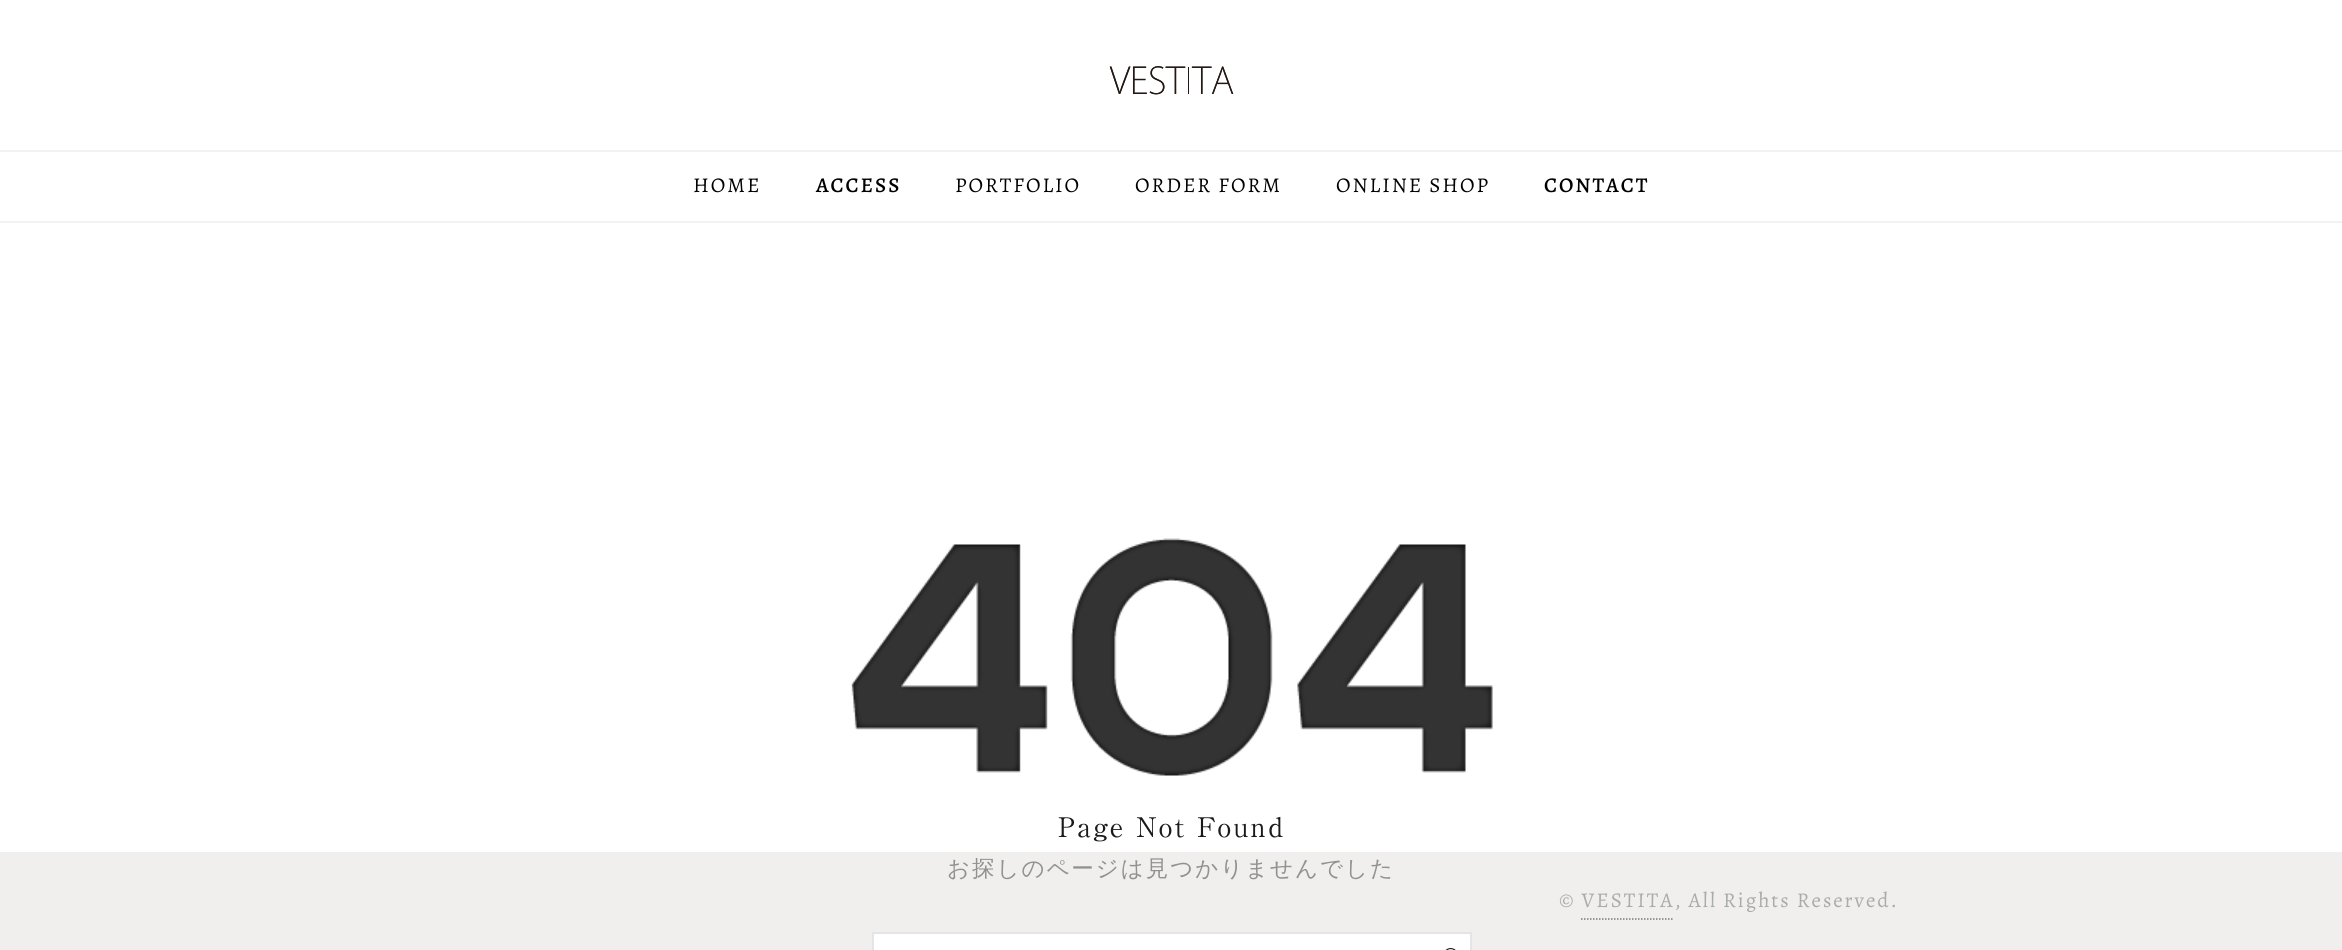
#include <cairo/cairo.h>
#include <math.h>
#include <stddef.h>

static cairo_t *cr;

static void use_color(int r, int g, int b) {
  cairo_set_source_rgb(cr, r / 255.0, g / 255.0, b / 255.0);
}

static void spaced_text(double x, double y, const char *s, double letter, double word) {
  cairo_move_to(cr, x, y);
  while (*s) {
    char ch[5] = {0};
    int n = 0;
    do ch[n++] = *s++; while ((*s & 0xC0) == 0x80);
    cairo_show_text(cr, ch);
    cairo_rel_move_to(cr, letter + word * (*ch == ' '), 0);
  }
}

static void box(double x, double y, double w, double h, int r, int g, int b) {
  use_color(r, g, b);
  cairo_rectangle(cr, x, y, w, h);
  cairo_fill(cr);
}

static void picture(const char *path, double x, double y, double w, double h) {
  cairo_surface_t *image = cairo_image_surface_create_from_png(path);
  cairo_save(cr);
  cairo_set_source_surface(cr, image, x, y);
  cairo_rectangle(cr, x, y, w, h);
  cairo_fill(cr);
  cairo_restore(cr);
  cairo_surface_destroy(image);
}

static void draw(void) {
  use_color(255, 255, 255);
  cairo_paint(cr);
  box(0, 150, 2342, 2, 241, 242, 242);
  picture("img_01.png", 1109, 66, 125, 29);
  box(0, 221, 2342, 2, 242, 242, 242);
  picture("img_02.png", 851, 538, 642, 238);
  box(0, 852, 2342, 98, 240, 239, 237);
  use_color(255, 255, 255);
  cairo_rectangle(cr, 873, 933, 598, 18);
  cairo_fill_preserve(cr);
  use_color(229, 229, 229);
  cairo_stroke(cr);
  picture("img_03.png", 1445, 948, 11, 2);
  cairo_new_path(cr);
  cairo_move_to(cr, 1581, 919);
  cairo_line_to(cr, 1674, 919);
  use_color(123, 121, 117);
  cairo_set_line_width(cr, 1.5);
  cairo_set_dash(cr, (double[]){1.5, 1.5}, 2, 0);
  cairo_stroke(cr);
  cairo_select_font_face(cr, "Alegreya", CAIRO_FONT_SLANT_NORMAL, CAIRO_FONT_WEIGHT_NORMAL);
  cairo_set_font_size(cr, 21);
  use_color(0, 0, 0);
  spaced_text(693, 192, "HOME", 1.95, 0);
  cairo_select_font_face(cr, "Alegreya Medium", CAIRO_FONT_SLANT_NORMAL, CAIRO_FONT_WEIGHT_NORMAL);
  spaced_text(816, 192, "ACCESS", 1.95, 0);
  cairo_select_font_face(cr, "Alegreya", CAIRO_FONT_SLANT_NORMAL, CAIRO_FONT_WEIGHT_NORMAL);
  spaced_text(955, 192, "PORTFOLIO", 1.95, 0);
  spaced_text(1135, 192, "ORDER FORM", 1.95, 0);
  spaced_text(1336, 192, "ONLINE SHOP", 1.95, 0);
  cairo_select_font_face(cr, "Alegreya Medium", CAIRO_FONT_SLANT_NORMAL, CAIRO_FONT_WEIGHT_NORMAL);
  spaced_text(1544, 192, "CONTACT", 1.95, 0);
  cairo_select_font_face(cr, "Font", CAIRO_FONT_SLANT_NORMAL, CAIRO_FONT_WEIGHT_NORMAL);
  cairo_set_font_size(cr, 27);
  use_color(26, 26, 26);
  spaced_text(1058, 837, "Page Not Found", 1.95, 0);
  cairo_select_font_face(cr, "WenQuanYi Zen Hei Medium", CAIRO_FONT_SLANT_NORMAL, CAIRO_FONT_WEIGHT_NORMAL);
  cairo_set_font_size(cr, 22.5);
  use_color(145, 145, 145);
  spaced_text(947, 876, "お探しのページは見つかりませんでした", 1.95, 0);
  cairo_select_font_face(cr, "Alegreya", CAIRO_FONT_SLANT_NORMAL, CAIRO_FONT_WEIGHT_NORMAL);
  cairo_set_font_size(cr, 21);
  use_color(169, 172, 167);
  spaced_text(1559, 907, "© VESTITA, All Rights Reserved.", 1.95, 0);
}

int main(void) {
  cairo_surface_t *surface = cairo_image_surface_create(CAIRO_FORMAT_RGB24, 2342, 950);
  cr = cairo_create(surface);
  cairo_font_options_t *options = cairo_font_options_create();
  cairo_font_options_set_hint_metrics(options, CAIRO_HINT_METRICS_OFF);
  cairo_font_options_set_hint_style(options, CAIRO_HINT_STYLE_NONE);
  cairo_set_font_options(cr, options);
  cairo_set_miter_limit(cr, 4);
  draw();
  cairo_surface_write_to_png(surface, "out.png");
  cairo_font_options_destroy(options);
  cairo_destroy(cr);
  cairo_surface_destroy(surface);
  return 0;
}
